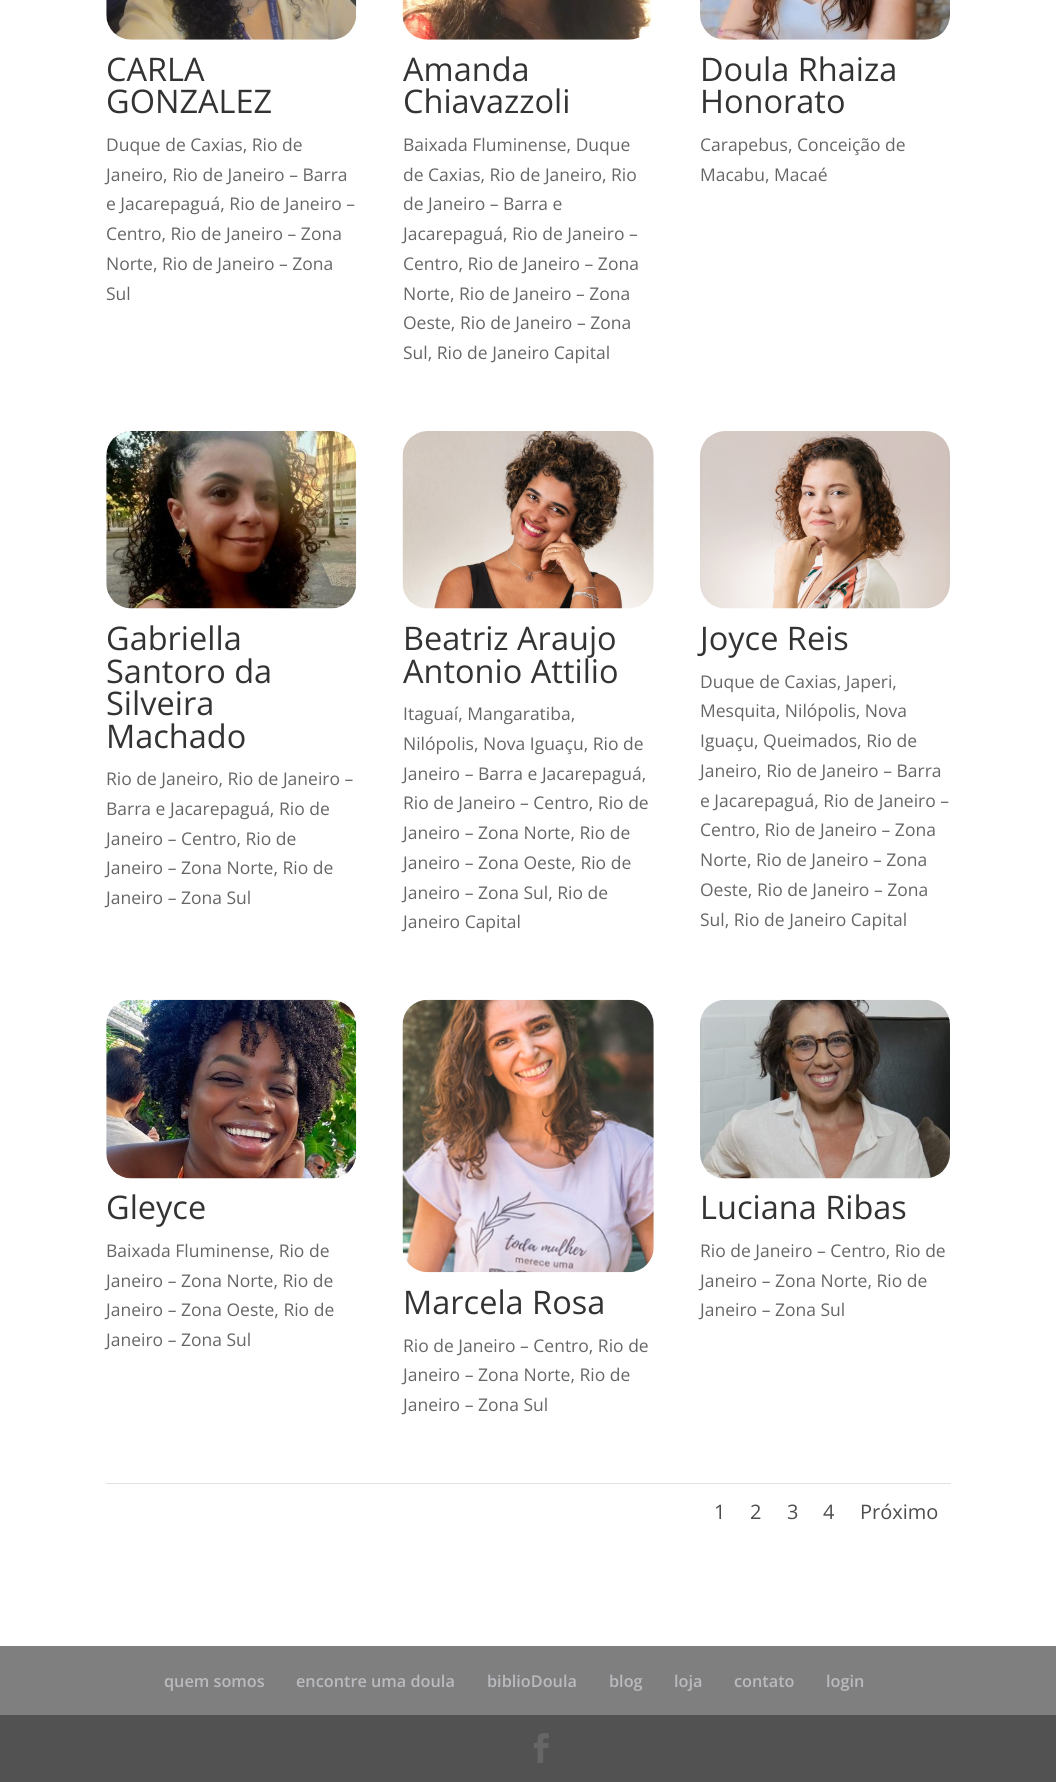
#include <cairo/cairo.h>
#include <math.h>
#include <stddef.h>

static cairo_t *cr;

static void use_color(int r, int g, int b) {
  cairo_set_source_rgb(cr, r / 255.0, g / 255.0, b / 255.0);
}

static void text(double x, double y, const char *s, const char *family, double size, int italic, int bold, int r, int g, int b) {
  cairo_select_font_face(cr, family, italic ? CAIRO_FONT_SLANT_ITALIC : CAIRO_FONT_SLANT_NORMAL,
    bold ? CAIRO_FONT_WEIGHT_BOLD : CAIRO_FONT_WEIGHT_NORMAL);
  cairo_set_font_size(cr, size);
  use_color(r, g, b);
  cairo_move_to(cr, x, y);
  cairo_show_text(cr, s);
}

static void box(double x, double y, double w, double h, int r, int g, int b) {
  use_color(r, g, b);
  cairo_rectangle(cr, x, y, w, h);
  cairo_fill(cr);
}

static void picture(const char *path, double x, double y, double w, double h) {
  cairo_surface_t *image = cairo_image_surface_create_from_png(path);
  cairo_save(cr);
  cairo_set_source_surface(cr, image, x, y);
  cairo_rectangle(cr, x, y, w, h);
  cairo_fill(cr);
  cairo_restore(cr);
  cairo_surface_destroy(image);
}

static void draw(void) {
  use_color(127, 127, 127);
  cairo_paint(cr);
  box(0, 0, 1056, 1646, 255, 255, 255);
  picture("img_01.png", 106, 0, 251, 40);
  picture("img_02.png", 402, 0, 250, 40);
  picture("img_03.png", 700, 0, 250, 40);
  picture("img_04.png", 106, 431, 251, 178);
  picture("img_05.png", 402, 431, 252, 178);
  picture("img_06.png", 700, 431, 250, 178);
  picture("img_07.png", 106, 999, 251, 180);
  picture("img_08.png", 700, 999, 250, 180);
  picture("img_09.png", 402, 999, 252, 274);
  box(106, 1483, 845, 1, 226, 226, 226);
  box(0, 1715, 1056, 67, 82, 82, 82);
  picture("img_10.png", 533, 1733, 16, 30);
  text(106, 81, "CARLA", "Open Sans", 32.5, 0, 0, 51, 51, 51);
  text(106, 113, "GONZALEZ", "Open Sans", 32.5, 0, 0, 51, 51, 51);
  text(106, 151, "Duque de Caxias, Rio de", "Open Sans", 17.5, 0, 0, 102, 102, 102);
  text(106, 181, "Janeiro, Rio de Janeiro – Barra", "Open Sans", 17.5, 0, 0, 102, 102, 102);
  text(106, 210, "e Jacarepaguá, Rio de Janeiro –", "Open Sans", 17.5, 0, 0, 102, 102, 102);
  text(106, 240, "Centro, Rio de Janeiro – Zona", "Open Sans", 17.5, 0, 0, 102, 102, 102);
  text(106, 270, "Norte, Rio de Janeiro – Zona", "Open Sans", 17.5, 0, 0, 102, 102, 102);
  text(106, 300, "Sul", "Open Sans", 17.5, 0, 0, 102, 102, 102);
  text(403, 81, "Amanda", "Open Sans", 32.5, 0, 0, 51, 51, 51);
  text(403, 113, "Chiavazzoli", "Open Sans", 32.5, 0, 0, 51, 51, 51);
  text(403, 151, "Baixada Fluminense, Duque", "Open Sans", 17.5, 0, 0, 102, 102, 102);
  text(403, 181, "de Caxias, Rio de Janeiro, Rio", "Open Sans", 17.5, 0, 0, 102, 102, 102);
  text(403, 210, "de Janeiro – Barra e", "Open Sans", 17.5, 0, 0, 102, 102, 102);
  text(403, 240, "Jacarepaguá, Rio de Janeiro –", "Open Sans", 17.5, 0, 0, 102, 102, 102);
  text(403, 270, "Centro, Rio de Janeiro – Zona", "Open Sans", 17.5, 0, 0, 102, 102, 102);
  text(403, 300, "Norte, Rio de Janeiro – Zona", "Open Sans", 17.5, 0, 0, 102, 102, 102);
  text(403, 329, "Oeste, Rio de Janeiro – Zona", "Open Sans", 17.5, 0, 0, 102, 102, 102);
  text(403, 359, "Sul, Rio de Janeiro Capital", "Open Sans", 17.5, 0, 0, 102, 102, 102);
  text(700, 81, "Doula Rhaiza", "Open Sans", 32.5, 0, 0, 51, 51, 51);
  text(700, 113, "Honorato", "Open Sans", 32.5, 0, 0, 51, 51, 51);
  text(700, 151, "Carapebus, Conceição de", "Open Sans", 17.5, 0, 0, 102, 102, 102);
  text(700, 181, "Macabu, Macaé", "Open Sans", 17.5, 0, 0, 102, 102, 102);
  text(106, 650, "Gabriella", "Open Sans", 32.5, 0, 0, 51, 51, 51);
  text(106, 683, "Santoro da", "Open Sans", 32.5, 0, 0, 51, 51, 51);
  text(106, 715, "Silveira", "Open Sans", 32.5, 0, 0, 51, 51, 51);
  text(106, 748, "Machado", "Open Sans", 32.5, 0, 0, 51, 51, 51);
  text(106, 785, "Rio de Janeiro, Rio de Janeiro –", "Open Sans", 17.5, 0, 0, 102, 102, 102);
  text(106, 815, "Barra e Jacarepaguá, Rio de", "Open Sans", 17.5, 0, 0, 102, 102, 102);
  text(106, 845, "Janeiro – Centro, Rio de", "Open Sans", 17.5, 0, 0, 102, 102, 102);
  text(106, 874, "Janeiro – Zona Norte, Rio de", "Open Sans", 17.5, 0, 0, 102, 102, 102);
  text(106, 904, "Janeiro – Zona Sul", "Open Sans", 17.5, 0, 0, 102, 102, 102);
  text(403, 650, "Beatriz Araujo", "Open Sans", 32.5, 0, 0, 51, 51, 51);
  text(403, 683, "Antonio Attilio", "Open Sans", 32.5, 0, 0, 51, 51, 51);
  text(403, 720, "Itaguaí, Mangaratiba,", "Open Sans", 17.5, 0, 0, 102, 102, 102);
  text(403, 750, "Nilópolis, Nova Iguaçu, Rio de", "Open Sans", 17.5, 0, 0, 102, 102, 102);
  text(403, 780, "Janeiro – Barra e Jacarepaguá,", "Open Sans", 17.5, 0, 0, 102, 102, 102);
  text(403, 809, "Rio de Janeiro – Centro, Rio de", "Open Sans", 17.5, 0, 0, 102, 102, 102);
  text(403, 839, "Janeiro – Zona Norte, Rio de", "Open Sans", 17.5, 0, 0, 102, 102, 102);
  text(403, 869, "Janeiro – Zona Oeste, Rio de", "Open Sans", 17.5, 0, 0, 102, 102, 102);
  text(403, 899, "Janeiro – Zona Sul, Rio de", "Open Sans", 17.5, 0, 0, 102, 102, 102);
  text(403, 928, "Janeiro Capital", "Open Sans", 17.5, 0, 0, 102, 102, 102);
  text(700, 650, "Joyce Reis", "Open Sans", 32.5, 0, 0, 51, 51, 51);
  text(700, 688, "Duque de Caxias, Japeri,", "Open Sans", 17.5, 0, 0, 102, 102, 102);
  text(700, 717, "Mesquita, Nilópolis, Nova", "Open Sans", 17.5, 0, 0, 102, 102, 102);
  text(700, 747, "Iguaçu, Queimados, Rio de", "Open Sans", 17.5, 0, 0, 102, 102, 102);
  text(700, 777, "Janeiro, Rio de Janeiro – Barra", "Open Sans", 17.5, 0, 0, 102, 102, 102);
  text(700, 807, "e Jacarepaguá, Rio de Janeiro –", "Open Sans", 17.5, 0, 0, 102, 102, 102);
  text(700, 836, "Centro, Rio de Janeiro – Zona", "Open Sans", 17.5, 0, 0, 102, 102, 102);
  text(700, 866, "Norte, Rio de Janeiro – Zona", "Open Sans", 17.5, 0, 0, 102, 102, 102);
  text(700, 896, "Oeste, Rio de Janeiro – Zona", "Open Sans", 17.5, 0, 0, 102, 102, 102);
  text(700, 926, "Sul, Rio de Janeiro Capital", "Open Sans", 17.5, 0, 0, 102, 102, 102);
  text(106, 1219, "Gleyce", "Open Sans", 32.5, 0, 0, 51, 51, 51);
  text(106, 1257, "Baixada Fluminense, Rio de", "Open Sans", 17.5, 0, 0, 102, 102, 102);
  text(106, 1287, "Janeiro – Zona Norte, Rio de", "Open Sans", 17.5, 0, 0, 102, 102, 102);
  text(106, 1316, "Janeiro – Zona Oeste, Rio de", "Open Sans", 17.5, 0, 0, 102, 102, 102);
  text(106, 1346, "Janeiro – Zona Sul", "Open Sans", 17.5, 0, 0, 102, 102, 102);
  text(700, 1219, "Luciana Ribas", "Open Sans", 32.5, 0, 0, 51, 51, 51);
  text(700, 1257, "Rio de Janeiro – Centro, Rio de", "Open Sans", 17.5, 0, 0, 102, 102, 102);
  text(700, 1287, "Janeiro – Zona Norte, Rio de", "Open Sans", 17.5, 0, 0, 102, 102, 102);
  text(700, 1316, "Janeiro – Zona Sul", "Open Sans", 17.5, 0, 0, 102, 102, 102);
  text(403, 1314, "Marcela Rosa", "Open Sans", 32.5, 0, 0, 51, 51, 51);
  text(403, 1352, "Rio de Janeiro – Centro, Rio de", "Open Sans", 17.5, 0, 0, 102, 102, 102);
  text(403, 1381, "Janeiro – Zona Norte, Rio de", "Open Sans", 17.5, 0, 0, 102, 102, 102);
  text(403, 1411, "Janeiro – Zona Sul", "Open Sans", 17.5, 0, 0, 102, 102, 102);
  text(714, 1519, "1", "Open Sans", 20, 0, 0, 77, 77, 77);
  text(750, 1519, "2", "Open Sans", 20, 0, 0, 77, 77, 77);
  text(787, 1519, "3", "Open Sans", 20, 0, 0, 77, 77, 77);
  text(823, 1519, "4", "Open Sans", 20, 0, 0, 77, 77, 77);
  text(860, 1519, "Próximo", "Open Sans", 20, 0, 0, 77, 77, 77);
  text(164, 1687, "quem somos", "Open Sans SemiBold", 16.25, 0, 0, 186, 187, 191);
  text(296, 1687, "encontre uma doula", "Open Sans SemiBold", 16.25, 0, 0, 186, 187, 191);
  text(487, 1687, "biblioDoula", "Open Sans SemiBold", 16.25, 0, 0, 186, 187, 191);
  text(609, 1687, "blog", "Open Sans SemiBold", 16.25, 0, 0, 186, 187, 191);
  text(674, 1687, "loja", "Open Sans SemiBold", 16.25, 0, 0, 186, 187, 191);
  text(734, 1687, "contato", "Open Sans SemiBold", 16.25, 0, 0, 186, 187, 191);
  text(826, 1687, "login", "Open Sans SemiBold", 16.25, 0, 0, 186, 187, 191);
}

int main(void) {
  cairo_surface_t *surface = cairo_image_surface_create(CAIRO_FORMAT_RGB24, 1056, 1782);
  cr = cairo_create(surface);
  cairo_font_options_t *options = cairo_font_options_create();
  cairo_font_options_set_hint_metrics(options, CAIRO_HINT_METRICS_OFF);
  cairo_font_options_set_hint_style(options, CAIRO_HINT_STYLE_NONE);
  cairo_set_font_options(cr, options);
  cairo_set_miter_limit(cr, 4);
  draw();
  cairo_surface_write_to_png(surface, "out.png");
  cairo_font_options_destroy(options);
  cairo_destroy(cr);
  cairo_surface_destroy(surface);
  return 0;
}
